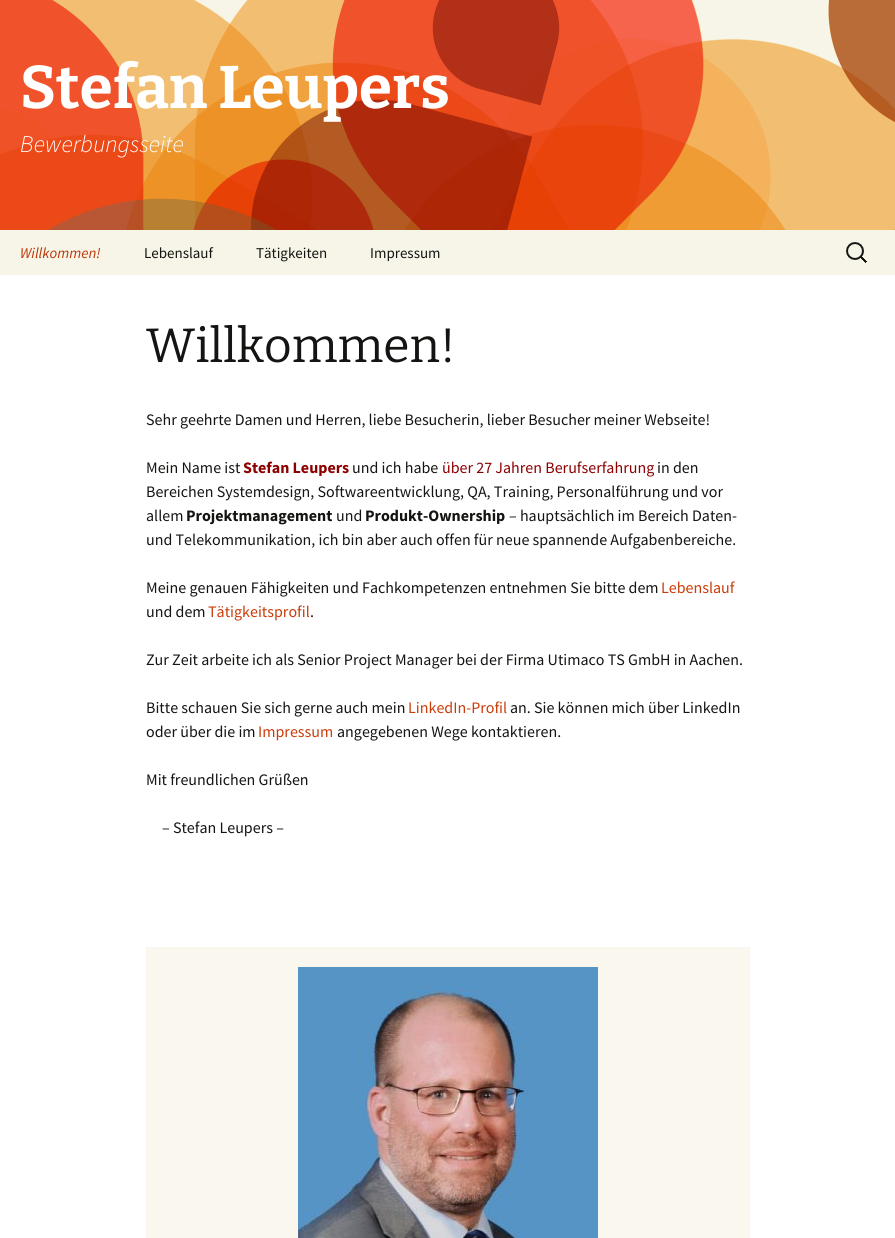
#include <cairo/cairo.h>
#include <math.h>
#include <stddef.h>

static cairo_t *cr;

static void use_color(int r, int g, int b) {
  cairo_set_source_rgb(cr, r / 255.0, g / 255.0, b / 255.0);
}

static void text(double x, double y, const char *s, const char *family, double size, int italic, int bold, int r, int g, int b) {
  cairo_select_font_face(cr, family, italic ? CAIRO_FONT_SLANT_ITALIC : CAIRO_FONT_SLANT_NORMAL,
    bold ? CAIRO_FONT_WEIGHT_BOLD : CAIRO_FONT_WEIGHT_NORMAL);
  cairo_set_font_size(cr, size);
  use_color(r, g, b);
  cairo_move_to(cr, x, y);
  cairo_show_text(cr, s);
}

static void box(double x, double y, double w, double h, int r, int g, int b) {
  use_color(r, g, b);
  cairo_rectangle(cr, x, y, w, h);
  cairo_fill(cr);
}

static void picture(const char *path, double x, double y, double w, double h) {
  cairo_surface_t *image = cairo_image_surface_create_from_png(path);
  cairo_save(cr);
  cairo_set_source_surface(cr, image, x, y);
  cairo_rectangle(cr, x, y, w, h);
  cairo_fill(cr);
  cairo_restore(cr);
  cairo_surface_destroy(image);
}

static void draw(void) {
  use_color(255, 255, 255);
  cairo_paint(cr);
  picture("img_01.png", 0, 0, 895, 230);
  box(0, 230, 895, 45, 247, 245, 231);
  picture("img_02.png", 846, 242, 21, 21);
  box(146, 947, 604, 291, 250, 248, 238);
  picture("img_03.png", 298, 967, 300, 271);
  text(20, 108, "Stefan Leupers", "Bitter Thin", 60, 0, 0, 255, 255, 255);
  text(20, 152, "Bewerbungsseite", "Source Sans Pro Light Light", 24, 1, 0, 255, 255, 255);
  text(20, 258, "Willkommen!", "Source Sans Pro", 15, 1, 0, 188, 54, 10);
  text(144, 258, "Lebenslauf", "Source Sans Pro", 15, 0, 0, 20, 20, 18);
  text(256, 258, "Tätigkeiten", "Source Sans Pro", 15, 0, 0, 20, 20, 18);
  text(370, 258, "Impressum", "Source Sans Pro", 15, 0, 0, 20, 20, 18);
  text(146, 362, "Willkommen!", "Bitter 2 Thin", 48, 0, 0, 20, 20, 18);
  text(146, 425, "Sehr geehrte Damen und Herren, liebe Besucherin, lieber Besucher meiner Webseite!", "Source Sans Pro", 16, 0, 0, 20, 20, 18);
  text(146, 473, "Mein Name ist", "Source Sans Pro", 16, 0, 0, 20, 20, 18);
  text(243, 473, "Stefan Leupers", "Source Sans Pro", 16, 0, 1, 139, 0, 0);
  text(352, 473, "und ich habe", "Source Sans Pro", 16, 0, 0, 20, 20, 18);
  text(442, 473, "über 27 Jahren Berufserfahrung", "Source Sans Pro", 16, 0, 0, 139, 0, 0);
  text(657, 473, "in den", "Source Sans Pro", 16, 0, 0, 20, 20, 18);
  text(146, 497, "Bereichen Systemdesign, Softwareentwicklung, QA, Training, Personalführung und vor", "Source Sans Pro", 16, 0, 0, 20, 20, 18);
  text(146, 521, "allem", "Source Sans Pro", 16, 0, 0, 20, 20, 18);
  text(186, 521, "Projektmanagement", "Source Sans Pro", 16, 0, 1, 20, 20, 18);
  text(336, 521, "und", "Source Sans Pro", 16, 0, 0, 20, 20, 18);
  text(365, 521, "Produkt-Ownership", "Source Sans Pro", 16, 0, 1, 20, 20, 18);
  text(509, 521, "– hauptsächlich im Bereich Daten-", "Source Sans Pro", 16, 0, 0, 20, 20, 18);
  text(146, 545, "und Telekommunikation, ich bin aber auch offen für neue spannende Aufgabenbereiche.", "Source Sans Pro", 16, 0, 0, 20, 20, 18);
  text(146, 593, "Meine genauen Fähigkeiten und Fachkompetenzen entnehmen Sie bitte dem", "Source Sans Pro", 16, 0, 0, 20, 20, 18);
  text(661, 593, "Lebenslauf", "Source Sans Pro", 16, 0, 0, 202, 60, 8);
  text(146, 617, "und dem", "Source Sans Pro", 16, 0, 0, 20, 20, 18);
  text(208, 617, "Tätigkeitsprofil", "Source Sans Pro", 16, 0, 0, 202, 60, 8);
  text(310, 617, ".", "Source Sans Pro", 16, 0, 0, 20, 20, 18);
  text(146, 665, "Zur Zeit arbeite ich als Senior Project Manager bei der Firma Utimaco TS GmbH in Aachen.", "Source Sans Pro", 16, 0, 0, 20, 20, 18);
  text(146, 713, "Bitte schauen Sie sich gerne auch mein", "Source Sans Pro", 16, 0, 0, 20, 20, 18);
  text(408, 713, "LinkedIn-Profil", "Source Sans Pro", 16, 0, 0, 202, 60, 8);
  text(510, 713, "an. Sie können mich über LinkedIn", "Source Sans Pro", 16, 0, 0, 20, 20, 18);
  text(146, 737, "oder über die im", "Source Sans Pro", 16, 0, 0, 20, 20, 18);
  text(258, 737, "Impressum", "Source Sans Pro", 16, 0, 0, 202, 60, 8);
  text(337, 737, "angegebenen Wege kontaktieren.", "Source Sans Pro", 16, 0, 0, 20, 20, 18);
  text(146, 785, "Mit freundlichen Grüßen", "Source Sans Pro", 16, 0, 0, 20, 20, 18);
  text(162, 833, "– Stefan Leupers –", "Source Sans Pro", 16, 0, 0, 20, 20, 18);
}

int main(void) {
  cairo_surface_t *surface = cairo_image_surface_create(CAIRO_FORMAT_RGB24, 895, 1238);
  cr = cairo_create(surface);
  cairo_font_options_t *options = cairo_font_options_create();
  cairo_font_options_set_hint_metrics(options, CAIRO_HINT_METRICS_OFF);
  cairo_font_options_set_hint_style(options, CAIRO_HINT_STYLE_NONE);
  cairo_set_font_options(cr, options);
  cairo_set_miter_limit(cr, 4);
  draw();
  cairo_surface_write_to_png(surface, "out.png");
  cairo_font_options_destroy(options);
  cairo_destroy(cr);
  cairo_surface_destroy(surface);
  return 0;
}
